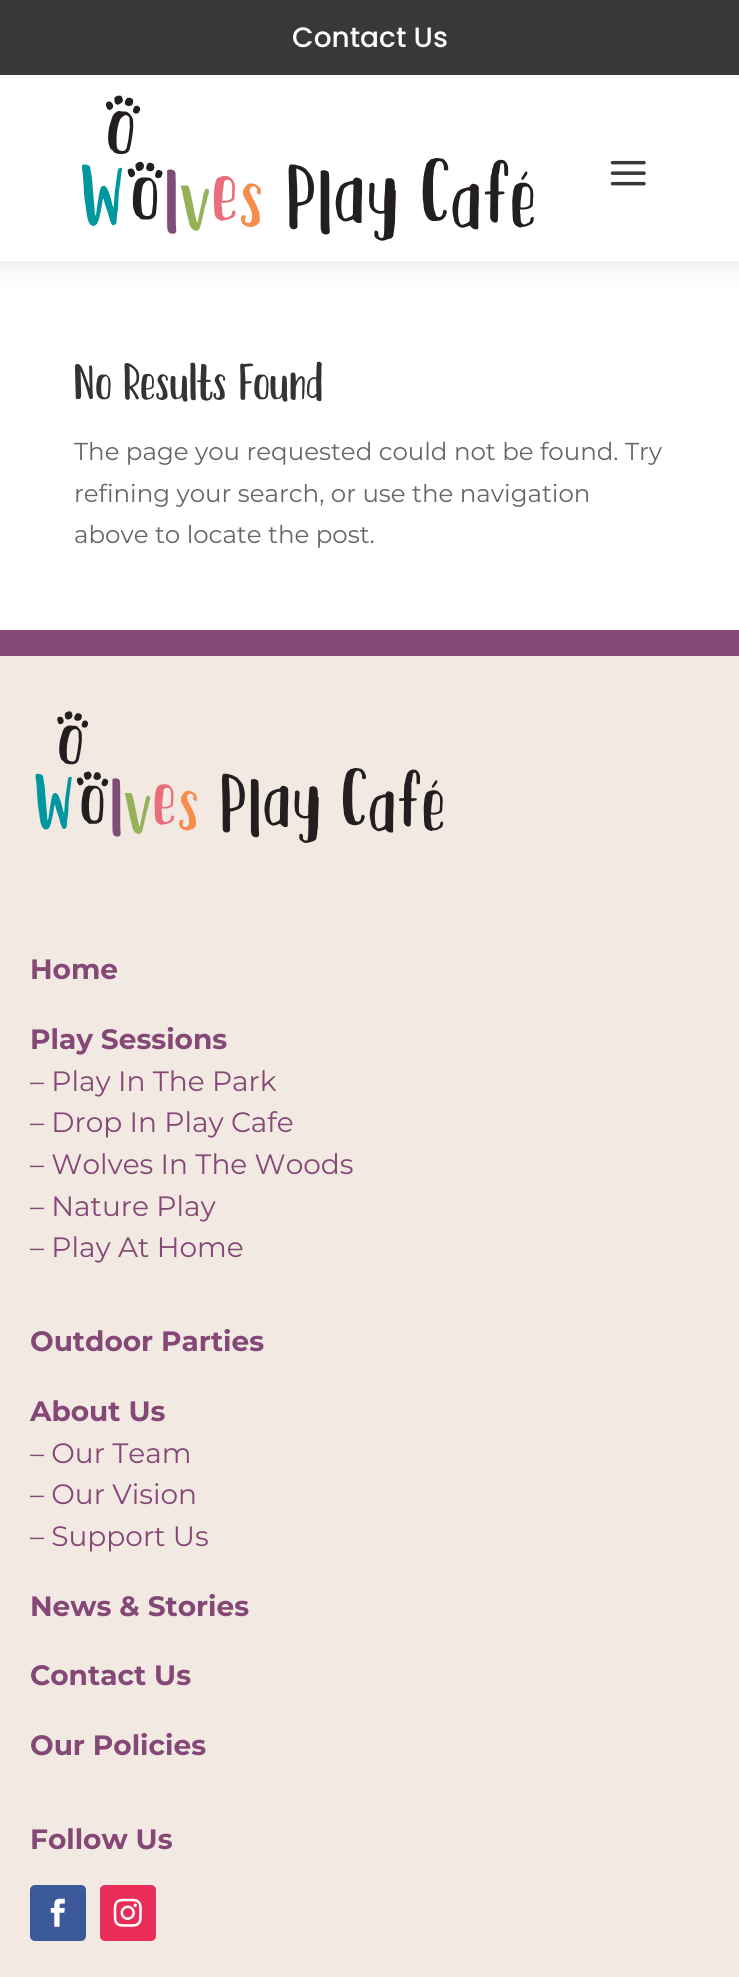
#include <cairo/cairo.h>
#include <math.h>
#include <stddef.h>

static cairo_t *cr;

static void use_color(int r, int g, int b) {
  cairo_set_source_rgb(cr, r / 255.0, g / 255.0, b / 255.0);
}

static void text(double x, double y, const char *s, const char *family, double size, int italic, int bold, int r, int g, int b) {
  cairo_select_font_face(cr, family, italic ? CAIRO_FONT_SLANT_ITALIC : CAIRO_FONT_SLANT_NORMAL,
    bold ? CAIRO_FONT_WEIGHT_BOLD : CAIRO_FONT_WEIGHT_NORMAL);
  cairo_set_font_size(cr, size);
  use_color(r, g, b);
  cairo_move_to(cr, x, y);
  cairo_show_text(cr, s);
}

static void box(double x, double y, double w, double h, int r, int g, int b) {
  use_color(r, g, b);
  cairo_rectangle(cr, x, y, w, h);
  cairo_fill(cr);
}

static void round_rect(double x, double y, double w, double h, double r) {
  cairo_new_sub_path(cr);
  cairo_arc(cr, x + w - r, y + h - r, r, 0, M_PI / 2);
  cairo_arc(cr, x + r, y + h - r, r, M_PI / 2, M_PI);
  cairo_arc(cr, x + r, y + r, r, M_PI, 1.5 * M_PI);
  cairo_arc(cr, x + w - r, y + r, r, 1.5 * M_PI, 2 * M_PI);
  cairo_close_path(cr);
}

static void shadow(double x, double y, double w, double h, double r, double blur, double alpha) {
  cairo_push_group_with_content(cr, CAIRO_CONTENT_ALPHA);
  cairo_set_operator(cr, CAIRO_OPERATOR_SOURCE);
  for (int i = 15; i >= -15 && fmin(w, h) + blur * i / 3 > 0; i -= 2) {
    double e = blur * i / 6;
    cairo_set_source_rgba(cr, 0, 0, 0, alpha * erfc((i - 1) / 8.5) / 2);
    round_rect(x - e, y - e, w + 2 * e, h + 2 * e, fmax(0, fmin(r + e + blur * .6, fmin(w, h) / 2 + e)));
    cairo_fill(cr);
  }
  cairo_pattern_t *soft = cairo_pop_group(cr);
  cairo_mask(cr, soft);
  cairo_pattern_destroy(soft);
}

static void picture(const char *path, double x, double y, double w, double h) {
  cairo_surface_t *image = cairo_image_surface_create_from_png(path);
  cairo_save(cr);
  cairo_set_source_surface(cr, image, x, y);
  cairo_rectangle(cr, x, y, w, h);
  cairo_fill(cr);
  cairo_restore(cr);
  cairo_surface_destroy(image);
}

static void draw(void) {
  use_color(255, 255, 255);
  cairo_paint(cr);
  use_color(0, 0, 0);
  shadow(0, 4, 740, 260, 0, 16, 0.1);
  box(0, 75, 739, 186, 255, 255, 255);
  box(0, 0, 739, 75, 56, 56, 56);
  picture("img_01.png", 81, 95, 453, 146);
  picture("img_02.png", 610, 160, 36, 26);
  box(0, 656, 739, 1321, 242, 233, 227);
  box(0, 630, 739, 26, 133, 72, 118);
  picture("img_03.png", 35, 711, 409, 132);
  use_color(59, 89, 152);
  round_rect(30, 1885, 56, 56, 5);
  cairo_fill(cr);
  picture("img_04.png", 50, 1898, 15, 29);
  use_color(234, 44, 89);
  round_rect(100, 1885, 56, 56, 5);
  cairo_fill(cr);
  picture("img_05.png", 113, 1898, 29, 29);
  text(292, 47, "Contact Us", "Poppins Medium", 28, 0, 0, 255, 255, 255);
  text(74, 399, "No Results Found", "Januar", 52.5, 0, 0, 51, 51, 51);
  text(74, 460, "The page you requested could not be found. Try", "Montserrat", 24.5, 0, 0, 102, 102, 102);
  text(74, 502, "refining your search, or use the navigation", "Montserrat", 24.5, 0, 0, 102, 102, 102);
  text(74, 543, "above to locate the post.", "Montserrat", 24.5, 0, 0, 102, 102, 102);
  text(30, 979, "Home", "Montserrat", 28, 0, 1, 133, 72, 118);
  text(30, 1049, "Play Sessions", "Montserrat", 28, 0, 1, 133, 72, 118);
  text(30, 1091, "– Play In The Park", "Montserrat", 28, 0, 0, 133, 72, 118);
  text(30, 1132, "– Drop In Play Cafe", "Montserrat", 28, 0, 0, 133, 72, 118);
  text(30, 1174, "– Wolves In The Woods", "Montserrat", 28, 0, 0, 133, 72, 118);
  text(30, 1216, "– Nature Play", "Montserrat", 28, 0, 0, 133, 72, 118);
  text(30, 1257, "– Play At Home", "Montserrat", 28, 0, 0, 133, 72, 118);
  text(30, 1351, "Outdoor Parties", "Montserrat", 28, 0, 1, 133, 72, 118);
  text(30, 1421, "About Us", "Montserrat", 28, 0, 1, 133, 72, 118);
  text(30, 1463, "– Our Team", "Montserrat", 28, 0, 0, 133, 72, 118);
  text(30, 1504, "– Our Vision", "Montserrat", 28, 0, 0, 133, 72, 118);
  text(30, 1546, "– Support Us", "Montserrat", 28, 0, 0, 133, 72, 118);
  text(30, 1616, "News & Stories", "Montserrat", 28, 0, 1, 133, 72, 118);
  text(30, 1685, "Contact Us", "Montserrat", 28, 0, 1, 133, 72, 118);
  text(30, 1755, "Our Policies", "Montserrat", 28, 0, 1, 133, 72, 118);
  text(30, 1849, "Follow Us", "Montserrat", 28, 0, 1, 133, 72, 118);
}

int main(void) {
  cairo_surface_t *surface = cairo_image_surface_create(CAIRO_FORMAT_RGB24, 739, 1977);
  cr = cairo_create(surface);
  cairo_font_options_t *options = cairo_font_options_create();
  cairo_font_options_set_hint_metrics(options, CAIRO_HINT_METRICS_OFF);
  cairo_font_options_set_hint_style(options, CAIRO_HINT_STYLE_NONE);
  cairo_set_font_options(cr, options);
  cairo_set_miter_limit(cr, 4);
  draw();
  cairo_surface_write_to_png(surface, "out.png");
  cairo_font_options_destroy(options);
  cairo_destroy(cr);
  cairo_surface_destroy(surface);
  return 0;
}
